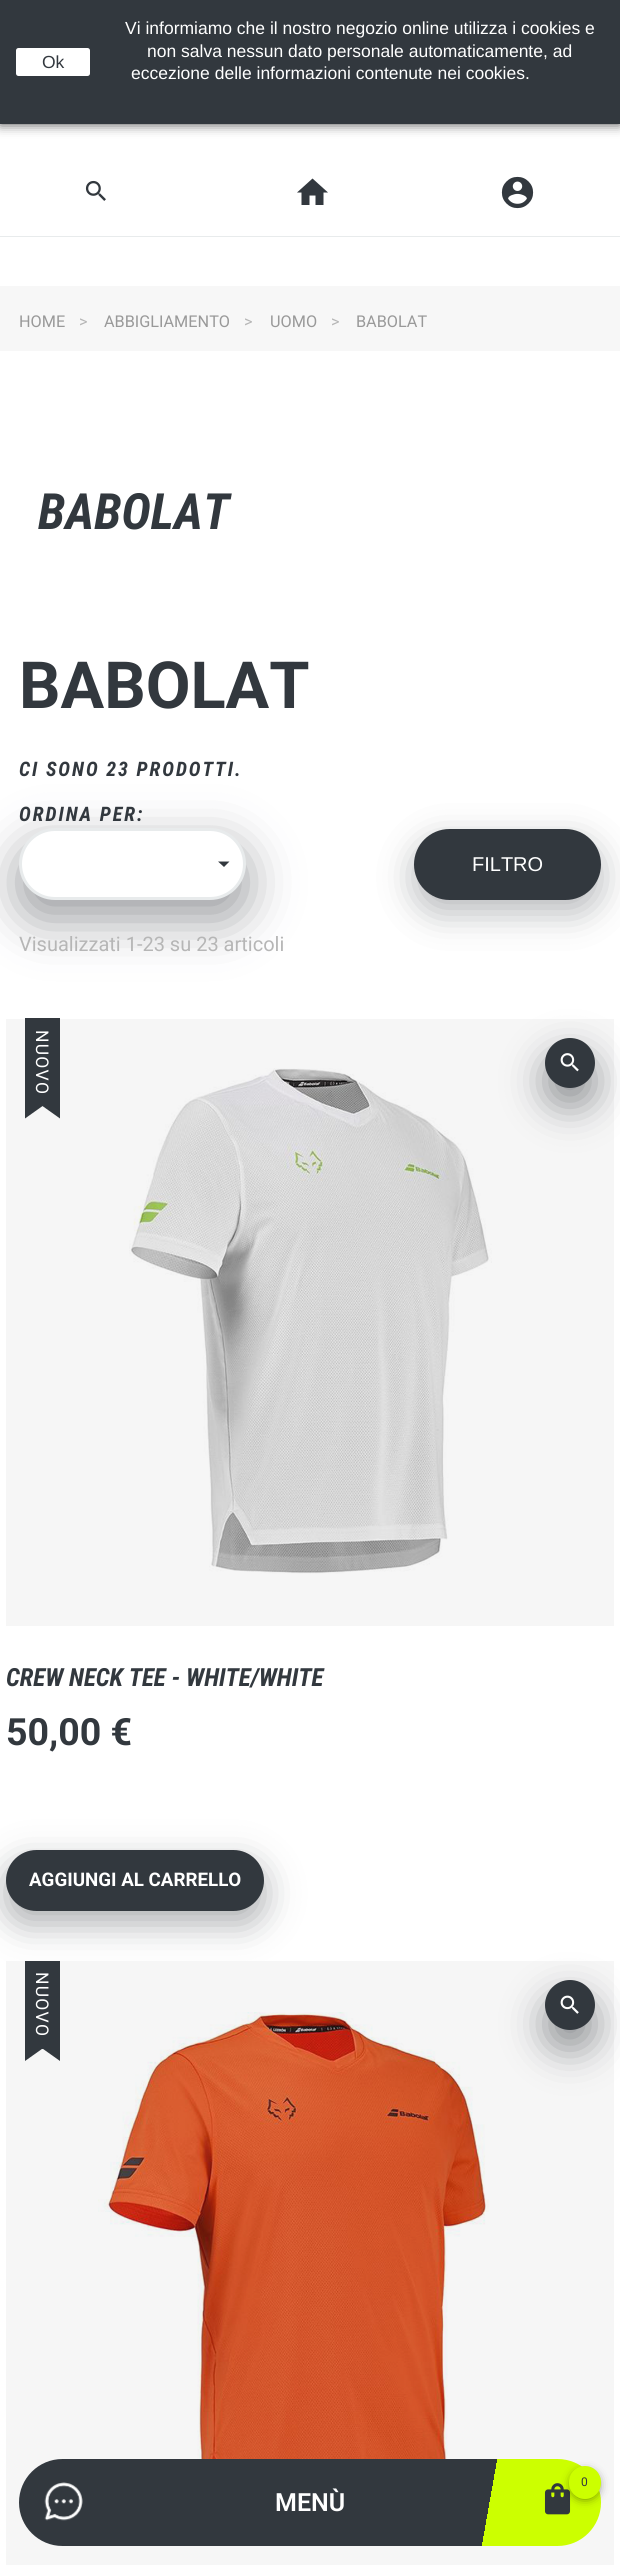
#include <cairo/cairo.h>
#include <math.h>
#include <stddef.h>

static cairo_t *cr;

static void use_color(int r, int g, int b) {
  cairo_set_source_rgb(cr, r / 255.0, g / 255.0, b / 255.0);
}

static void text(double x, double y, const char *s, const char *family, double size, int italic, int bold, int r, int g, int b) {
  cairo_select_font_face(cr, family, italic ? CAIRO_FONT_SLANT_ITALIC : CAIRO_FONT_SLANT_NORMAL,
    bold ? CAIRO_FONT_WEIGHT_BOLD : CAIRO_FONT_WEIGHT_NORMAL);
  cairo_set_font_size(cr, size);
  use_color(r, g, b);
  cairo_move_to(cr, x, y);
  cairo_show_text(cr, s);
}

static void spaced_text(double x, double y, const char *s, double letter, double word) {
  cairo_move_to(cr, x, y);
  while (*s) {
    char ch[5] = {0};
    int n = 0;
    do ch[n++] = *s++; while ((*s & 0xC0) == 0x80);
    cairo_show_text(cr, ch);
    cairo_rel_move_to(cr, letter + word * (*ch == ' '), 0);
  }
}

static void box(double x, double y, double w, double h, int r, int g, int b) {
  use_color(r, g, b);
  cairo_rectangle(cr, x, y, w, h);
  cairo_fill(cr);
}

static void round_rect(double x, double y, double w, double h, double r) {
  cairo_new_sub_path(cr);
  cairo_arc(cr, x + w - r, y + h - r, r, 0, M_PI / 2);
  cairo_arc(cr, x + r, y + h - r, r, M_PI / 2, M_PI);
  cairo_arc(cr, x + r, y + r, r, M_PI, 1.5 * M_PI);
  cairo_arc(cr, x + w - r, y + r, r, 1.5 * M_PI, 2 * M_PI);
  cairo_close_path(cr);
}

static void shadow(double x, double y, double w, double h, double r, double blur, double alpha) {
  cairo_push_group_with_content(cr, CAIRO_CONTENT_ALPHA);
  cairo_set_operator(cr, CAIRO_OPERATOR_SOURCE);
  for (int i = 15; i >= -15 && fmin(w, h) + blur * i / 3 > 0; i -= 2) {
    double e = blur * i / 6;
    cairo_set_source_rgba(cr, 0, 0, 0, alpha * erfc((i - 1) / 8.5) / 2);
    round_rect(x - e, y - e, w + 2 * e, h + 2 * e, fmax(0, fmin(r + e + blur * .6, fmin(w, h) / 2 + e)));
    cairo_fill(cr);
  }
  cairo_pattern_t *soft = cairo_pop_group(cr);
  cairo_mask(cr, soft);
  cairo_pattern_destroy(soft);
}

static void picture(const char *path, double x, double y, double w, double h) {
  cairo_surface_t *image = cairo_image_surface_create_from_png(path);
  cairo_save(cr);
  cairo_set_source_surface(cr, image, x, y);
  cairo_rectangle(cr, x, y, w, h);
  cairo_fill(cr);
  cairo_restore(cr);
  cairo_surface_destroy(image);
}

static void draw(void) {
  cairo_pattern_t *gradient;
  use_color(255, 255, 255);
  cairo_paint(cr);
  use_color(71, 71, 71);
  shadow(0, 0, 620, 124, 0, 6, 1);
  box(0, 0, 620, 124, 50, 56, 62);
  use_color(255, 255, 255);
  round_rect(16, 48, 74, 28, 2.5);
  cairo_fill(cr);
  box(0, 286, 620, 65, 247, 247, 247);
  use_color(53, 57, 64);
  shadow(19, 846, 227, 73, 36.5, 25, 0.5);
  use_color(255, 255, 255);
  round_rect(20.5, 829.5, 224, 69, 34.5);
  cairo_fill_preserve(cr);
  use_color(232, 235, 236);
  cairo_set_line_width(cr, 3);
  cairo_stroke(cr);
  use_color(50, 56, 62);
  cairo_new_path(cr);
  cairo_move_to(cr, 218, 861.5);
  cairo_line_to(cr, 229.5, 861.5);
  cairo_line_to(cr, 224, 867);
  cairo_close_path(cr);
  cairo_fill(cr);
  use_color(50, 56, 62);
  shadow(414, 841, 187, 72, 36, 17.5, 0.35);
  use_color(50, 56, 62);
  round_rect(414, 829, 187, 71, 35.5);
  cairo_fill(cr);
  box(6, 1019, 608, 607, 246, 246, 246);
  picture("img_02.png", 129, 1068, 363, 506);
  use_color(50, 56, 62);
  shadow(545, 1056, 50, 50, 25, 19, 0.5);
  use_color(50, 56, 62);
  cairo_arc(cr, 570, 1063, 25, 0, 2 * M_PI);
  cairo_fill(cr);
  picture("img_01.png", 560, 1053, 19, 19);
  box(25, 1018, 35, 88, 50, 56, 62);
  cairo_new_path(cr);
  cairo_move_to(cr, 60, 1105);
  cairo_line_to(cr, 60, 1118.5);
  cairo_line_to(cr, 41, 1105);
  cairo_close_path(cr);
  cairo_fill(cr);
  cairo_new_path(cr);
  cairo_move_to(cr, 25, 1105);
  cairo_line_to(cr, 44, 1105);
  cairo_line_to(cr, 25, 1118.5);
  cairo_close_path(cr);
  cairo_fill(cr);
  use_color(50, 56, 62);
  shadow(6, 1863, 258, 61, 30.5, 17.5, 0.4);
  use_color(50, 56, 62);
  round_rect(6, 1850, 258, 61, 30.5);
  cairo_fill(cr);
  box(6, 1961, 608, 604, 246, 246, 246);
  picture("img_04.png", 98, 2012, 391, 447);
  use_color(50, 56, 62);
  shadow(545, 1999, 50, 50, 25, 19, 0.5);
  use_color(50, 56, 62);
  cairo_arc(cr, 570, 2005, 25, 0, 2 * M_PI);
  cairo_fill(cr);
  picture("img_03.png", 560, 1995, 19, 19);
  box(25, 1961, 35, 88, 50, 56, 62);
  cairo_new_path(cr);
  cairo_move_to(cr, 60, 2047.5);
  cairo_line_to(cr, 60, 2061);
  cairo_line_to(cr, 41, 2047.5);
  cairo_close_path(cr);
  cairo_fill(cr);
  cairo_new_path(cr);
  cairo_move_to(cr, 25, 2047.5);
  cairo_line_to(cr, 44, 2047.5);
  cairo_line_to(cr, 25, 2061);
  cairo_close_path(cr);
  cairo_fill(cr);
  gradient = cairo_pattern_create_linear(20, 2451, 600, 2554);
  cairo_pattern_add_color_stop_rgba(gradient, 0.8, 0.196, 0.22, 0.243, 1);
  cairo_pattern_add_color_stop_rgba(gradient, 0.8, 0.8, 1, 0, 1);
  cairo_set_source(cr, gradient);
  cairo_pattern_destroy(gradient);
  round_rect(19, 2459, 582, 87, 43.5);
  cairo_fill(cr);
  picture("img_05.png", 44, 2482, 39, 39);
  box(0, 236, 620, 1, 232, 235, 236);
  picture("img_06.png", 85, 180, 21, 21);
  use_color(50, 56, 62);
  cairo_new_path(cr);
  cairo_move_to(cr, 309.5, 205);
  cairo_line_to(cr, 301.5, 205);
  cairo_line_to(cr, 301.5, 192.5);
  cairo_line_to(cr, 297, 192.5);
  cairo_line_to(cr, 312.5, 178.5);
  cairo_line_to(cr, 328, 192.5);
  cairo_line_to(cr, 323.5, 192.5);
  cairo_line_to(cr, 323.5, 205);
  cairo_line_to(cr, 315.5, 205);
  cairo_line_to(cr, 315.5, 195.5);
  cairo_line_to(cr, 309.5, 195.5);
  cairo_close_path(cr);
  cairo_fill(cr);
  picture("img_07.png", 501, 176, 33, 33);
  picture("img_08.png", 544, 2483, 27, 32);
  use_color(0, 0, 0);
  shadow(575, 2475, 20, 20, 10, 6, 1);
  use_color(204, 255, 0);
  round_rect(569, 2466, 32, 33, 16);
  cairo_fill(cr);
  text(42, 68, "Ok", "Liberation Sans", 17.5, 0, 0, 50, 56, 62);
  text(125, 34, "Vi informiamo che il nostro negozio online utilizza i cookies e", "Liberation Sans", 17.5, 0, 0, 255, 255, 255);
  text(147, 57, "non salva nessun dato personale automaticamente, ad", "Liberation Sans", 17.5, 0, 0, 255, 255, 255);
  text(131, 79, "eccezione delle informazioni contenute nei cookies.", "Liberation Sans", 17.5, 0, 0, 255, 255, 255);
  text(19, 327, "HOME", "Roboto", 16.25, 0, 0, 153, 153, 153);
  text(79, 327, ">", "Roboto", 16.25, 0, 0, 182, 182, 182);
  text(104, 327, "ABBIGLIAMENTO", "Roboto", 16.25, 0, 0, 153, 153, 153);
  text(244, 327, ">", "Roboto", 16.25, 0, 0, 182, 182, 182);
  text(270, 327, "UOMO", "Roboto", 16.25, 0, 0, 153, 153, 153);
  text(331, 327, ">", "Roboto", 16.25, 0, 0, 182, 182, 182);
  text(356, 327, "BABOLAT", "Roboto", 16.25, 0, 0, 153, 153, 153);
  text(38, 529, "BABOLAT", "Roboto Condensed", 50, 1, 1, 50, 56, 62);
  text(19, 708, "BABOLAT", "Roboto", 65, 0, 1, 50, 56, 62);
  cairo_select_font_face(cr, "Roboto Condensed", CAIRO_FONT_SLANT_ITALIC, CAIRO_FONT_WEIGHT_BOLD);
  cairo_set_font_size(cr, 20);
  spaced_text(19, 776, "CI SONO 23 PRODOTTI.", 2, 0);
  spaced_text(19, 821, "ORDINA PER:", 2, 0);
  text(472, 871, "FILTRO", "Liberation Sans", 20, 0, 0, 255, 255, 255);
  text(19, 951, "Visualizzati 1-23 su 23 articoli", "Roboto", 20, 0, 0, 182, 182, 182);
  cairo_set_font_size(cr, 17.5);
  use_color(255, 255, 255);
  cairo_save(cr);
  cairo_translate(cr, 36, 1030);
  cairo_rotate(cr, 90 * M_PI / 180);
  spaced_text(0, 0, "NUOVO", 1.25, 0);
  cairo_restore(cr);
  text(6, 1686, "CREW NECK TEE - WHITE/WHITE", "Roboto Condensed", 25, 1, 1, 50, 56, 62);
  text(6, 1745, "50,00 €", "Roboto", 37.5, 0, 1, 50, 56, 62);
  text(29, 1886, "AGGIUNGI AL CARRELLO", "Roboto", 18.75, 0, 1, 255, 255, 255);
  cairo_select_font_face(cr, "Roboto", CAIRO_FONT_SLANT_NORMAL, CAIRO_FONT_WEIGHT_NORMAL);
  cairo_set_font_size(cr, 17.5);
  cairo_save(cr);
  cairo_translate(cr, 36, 1972);
  cairo_rotate(cr, 90 * M_PI / 180);
  spaced_text(0, 0, "NUOVO", 1.25, 0);
  cairo_restore(cr);
  text(581, 2486, "0", "Roboto", 12, 0, 0, 50, 56, 62);
  text(275, 2511, "MENÙ", "Roboto SemiBold", 25, 0, 0, 255, 255, 255);
}

int main(void) {
  cairo_surface_t *surface = cairo_image_surface_create(CAIRO_FORMAT_RGB24, 620, 2565);
  cr = cairo_create(surface);
  cairo_font_options_t *options = cairo_font_options_create();
  cairo_font_options_set_hint_metrics(options, CAIRO_HINT_METRICS_OFF);
  cairo_font_options_set_hint_style(options, CAIRO_HINT_STYLE_NONE);
  cairo_set_font_options(cr, options);
  cairo_set_miter_limit(cr, 4);
  draw();
  cairo_surface_write_to_png(surface, "out.png");
  cairo_font_options_destroy(options);
  cairo_destroy(cr);
  cairo_surface_destroy(surface);
  return 0;
}
